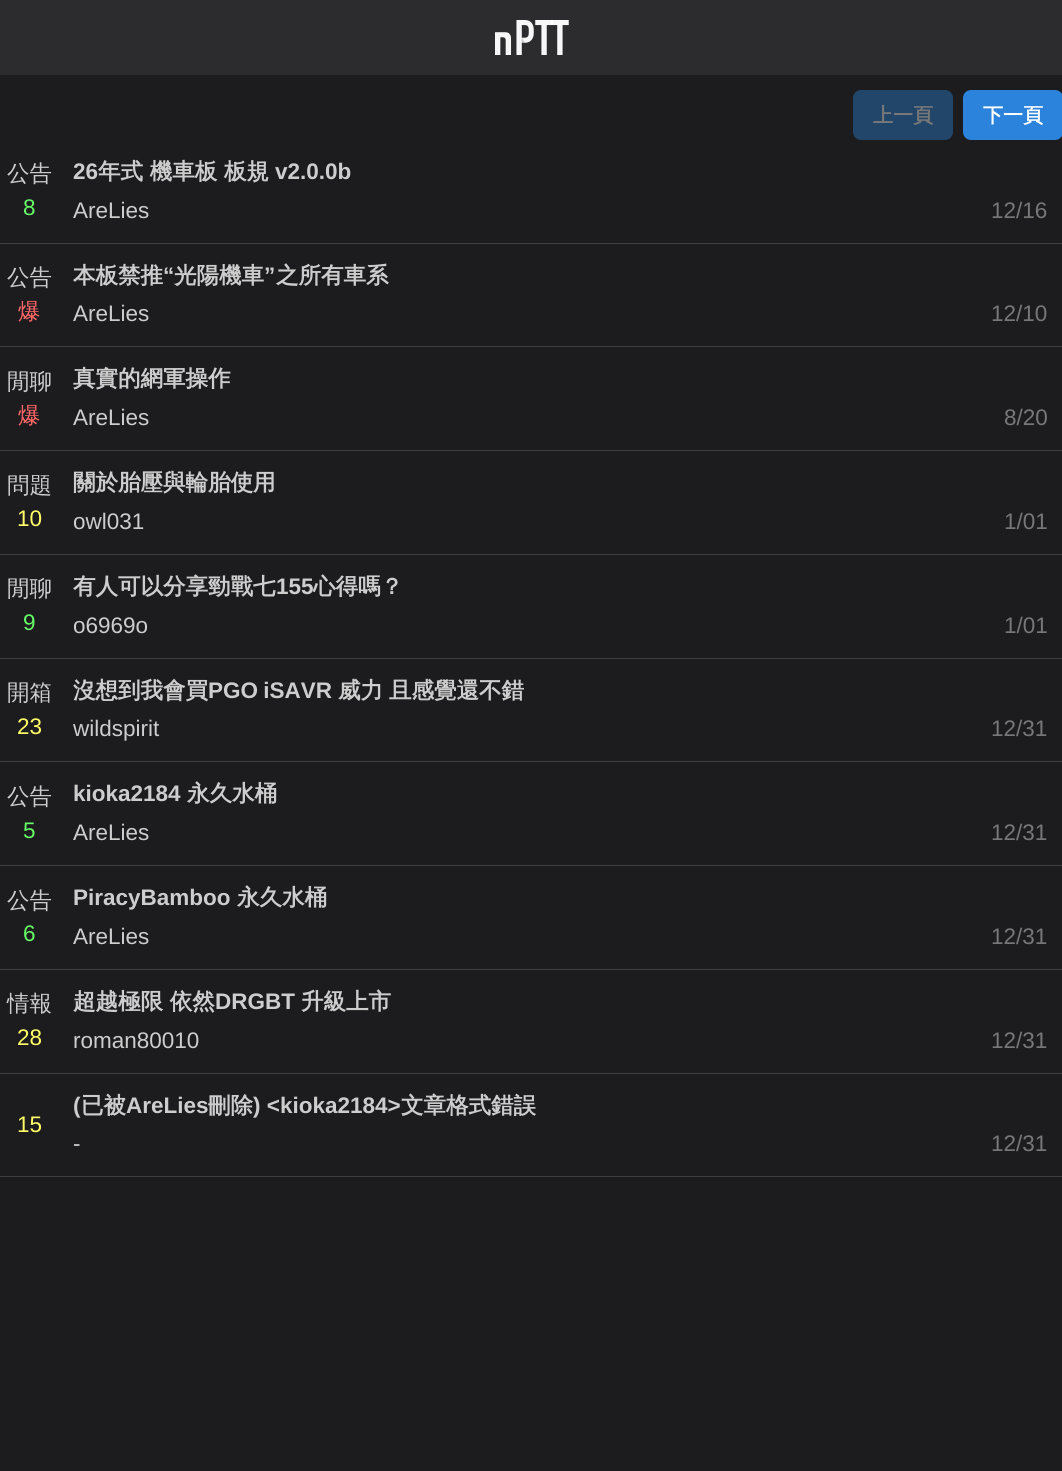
#include <cairo/cairo.h>
#include <math.h>
#include <stddef.h>

static cairo_t *cr;

static void use_color(int r, int g, int b) {
  cairo_set_source_rgb(cr, r / 255.0, g / 255.0, b / 255.0);
}

static void text(double x, double y, const char *s, const char *family, double size, int italic, int bold, int r, int g, int b) {
  cairo_select_font_face(cr, family, italic ? CAIRO_FONT_SLANT_ITALIC : CAIRO_FONT_SLANT_NORMAL,
    bold ? CAIRO_FONT_WEIGHT_BOLD : CAIRO_FONT_WEIGHT_NORMAL);
  cairo_set_font_size(cr, size);
  use_color(r, g, b);
  cairo_move_to(cr, x, y);
  cairo_show_text(cr, s);
}

static void spaced_text(double x, double y, const char *s, double letter, double word) {
  cairo_move_to(cr, x, y);
  while (*s) {
    char ch[5] = {0};
    int n = 0;
    do ch[n++] = *s++; while ((*s & 0xC0) == 0x80);
    cairo_show_text(cr, ch);
    cairo_rel_move_to(cr, letter + word * (*ch == ' '), 0);
  }
}

static void box(double x, double y, double w, double h, int r, int g, int b) {
  use_color(r, g, b);
  cairo_rectangle(cr, x, y, w, h);
  cairo_fill(cr);
}

static void round_rect(double x, double y, double w, double h, double r) {
  cairo_new_sub_path(cr);
  cairo_arc(cr, x + w - r, y + h - r, r, 0, M_PI / 2);
  cairo_arc(cr, x + r, y + h - r, r, M_PI / 2, M_PI);
  cairo_arc(cr, x + r, y + r, r, M_PI, 1.5 * M_PI);
  cairo_arc(cr, x + w - r, y + r, r, 1.5 * M_PI, 2 * M_PI);
  cairo_close_path(cr);
}

static void picture(const char *path, double x, double y, double w, double h) {
  cairo_surface_t *image = cairo_image_surface_create_from_png(path);
  cairo_save(cr);
  cairo_set_source_surface(cr, image, x, y);
  cairo_rectangle(cr, x, y, w, h);
  cairo_fill(cr);
  cairo_restore(cr);
  cairo_surface_destroy(image);
}

static void draw(void) {
  use_color(28, 28, 30);
  cairo_paint(cr);
  box(0, 0, 1062, 75, 44, 44, 46);
  picture("img_01.png", 495, 20, 74, 35);
  use_color(34, 69, 106);
  round_rect(853, 90, 100, 50, 8);
  cairo_fill(cr);
  use_color(44, 131, 219);
  round_rect(963, 90, 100, 50, 8);
  cairo_fill(cr);
  box(0, 243, 1062, 1, 64, 64, 66);
  box(0, 346, 1062, 1, 64, 64, 66);
  box(0, 450, 1062, 1, 64, 64, 66);
  box(0, 554, 1062, 1, 64, 64, 66);
  box(0, 658, 1062, 1, 64, 64, 66);
  box(0, 761, 1062, 1, 64, 64, 66);
  box(0, 865, 1062, 1, 64, 64, 66);
  box(0, 969, 1062, 1, 64, 64, 66);
  box(0, 1073, 1062, 1, 64, 64, 66);
  box(0, 1176, 1062, 1, 64, 64, 66);
  text(873, 122, "上一頁", "WenQuanYi Zen Hei", 20, 0, 1, 119, 119, 120);
  text(983, 122, "下一頁", "WenQuanYi Zen Hei", 20, 0, 1, 255, 255, 255);
  text(7, 181, "公告", "WenQuanYi Zen Hei Medium", 22.5, 0, 0, 205, 205, 206);
  text(23, 215, "8", "Liberation Sans", 22.5, 0, 0, 102, 255, 102);
  text(73, 179, "26", "Liberation Sans", 22.5, 0, 1, 205, 205, 206);
  text(98, 179, "年式 機車板 板規", "WenQuanYi Zen Hei", 22.5, 0, 1, 205, 205, 206);
  text(275, 179, "v2.0.0b", "Liberation Sans", 22.5, 0, 1, 205, 205, 206);
  text(73, 218, "AreLies", "Liberation Sans", 22.5, 0, 0, 205, 205, 206);
  text(991, 218, "12/16", "Liberation Sans", 22.5, 0, 0, 119, 119, 120);
  text(7, 285, "公告", "WenQuanYi Zen Hei Medium", 22.5, 0, 0, 205, 205, 206);
  text(18, 319, "爆", "WenQuanYi Zen Hei Medium", 22.5, 0, 0, 255, 102, 102);
  text(73, 283, "本板禁推", "WenQuanYi Zen Hei", 22.5, 0, 1, 205, 205, 206);
  text(163, 283, "“", "Liberation Sans", 22.5, 0, 1, 205, 205, 206);
  text(174, 283, "光陽機車", "WenQuanYi Zen Hei", 22.5, 0, 1, 205, 205, 206);
  text(264, 283, "”", "Liberation Sans", 22.5, 0, 1, 205, 205, 206);
  text(276, 283, "之所有車系", "WenQuanYi Zen Hei", 22.5, 0, 1, 205, 205, 206);
  text(73, 321, "AreLies", "Liberation Sans", 22.5, 0, 0, 205, 205, 206);
  text(991, 321, "12/10", "Liberation Sans", 22.5, 0, 0, 119, 119, 120);
  text(7, 389, "閒聊", "WenQuanYi Zen Hei Medium", 22.5, 0, 0, 205, 205, 206);
  text(18, 423, "爆", "WenQuanYi Zen Hei Medium", 22.5, 0, 0, 255, 102, 102);
  text(73, 386, "真實的網軍操作", "WenQuanYi Zen Hei", 22.5, 0, 1, 205, 205, 206);
  text(73, 425, "AreLies", "Liberation Sans", 22.5, 0, 0, 205, 205, 206);
  text(1004, 425, "8/20", "Liberation Sans", 22.5, 0, 0, 119, 119, 120);
  text(7, 493, "問題", "WenQuanYi Zen Hei Medium", 22.5, 0, 0, 205, 205, 206);
  text(17, 526, "10", "Liberation Sans", 22.5, 0, 0, 255, 255, 102);
  text(73, 490, "關於胎壓與輪胎使用", "WenQuanYi Zen Hei", 22.5, 0, 1, 205, 205, 206);
  text(73, 529, "owl031", "Liberation Sans", 22.5, 0, 0, 205, 205, 206);
  text(1004, 529, "1/01", "Liberation Sans", 22.5, 0, 0, 119, 119, 120);
  text(7, 596, "閒聊", "WenQuanYi Zen Hei Medium", 22.5, 0, 0, 205, 205, 206);
  text(23, 630, "9", "Liberation Sans", 22.5, 0, 0, 102, 255, 102);
  text(73, 594, "有人可以分享勁戰七", "WenQuanYi Zen Hei", 22.5, 0, 1, 205, 205, 206);
  text(276, 594, "155", "Liberation Sans", 22.5, 0, 1, 205, 205, 206);
  text(313, 594, "心得嗎？", "WenQuanYi Zen Hei", 22.5, 0, 1, 205, 205, 206);
  text(73, 633, "o6969o", "Liberation Sans", 22.5, 0, 0, 205, 205, 206);
  text(1004, 633, "1/01", "Liberation Sans", 22.5, 0, 0, 119, 119, 120);
  text(7, 700, "開箱", "WenQuanYi Zen Hei Medium", 22.5, 0, 0, 205, 205, 206);
  text(17, 734, "23", "Liberation Sans", 22.5, 0, 0, 255, 255, 102);
  text(73, 698, "沒想到我會買", "WenQuanYi Zen Hei", 22.5, 0, 1, 205, 205, 206);
  cairo_select_font_face(cr, "Liberation Sans", CAIRO_FONT_SLANT_NORMAL, CAIRO_FONT_WEIGHT_BOLD);
  spaced_text(208, 698, "PGO iSAVR", 0, -1);
  text(338, 698, "威力", "WenQuanYi Zen Hei", 22.5, 0, 1, 205, 205, 206);
  text(389, 698, "且感覺還不錯", "WenQuanYi Zen Hei", 22.5, 0, 1, 205, 205, 206);
  text(73, 736, "wildspirit", "Liberation Sans", 22.5, 0, 0, 205, 205, 206);
  text(991, 736, "12/31", "Liberation Sans", 22.5, 0, 0, 119, 119, 120);
  text(7, 804, "公告", "WenQuanYi Zen Hei Medium", 22.5, 0, 0, 205, 205, 206);
  text(23, 838, "5", "Liberation Sans", 22.5, 0, 0, 102, 255, 102);
  text(73, 801, "kioka2184", "Liberation Sans", 22.5, 0, 1, 205, 205, 206);
  text(187, 801, "永久水桶", "WenQuanYi Zen Hei", 22.5, 0, 1, 205, 205, 206);
  text(73, 840, "AreLies", "Liberation Sans", 22.5, 0, 0, 205, 205, 206);
  text(991, 840, "12/31", "Liberation Sans", 22.5, 0, 0, 119, 119, 120);
  text(7, 908, "公告", "WenQuanYi Zen Hei Medium", 22.5, 0, 0, 205, 205, 206);
  text(23, 941, "6", "Liberation Sans", 22.5, 0, 0, 102, 255, 102);
  text(73, 905, "PiracyBamboo", "Liberation Sans", 22.5, 0, 1, 205, 205, 206);
  text(237, 905, "永久水桶", "WenQuanYi Zen Hei", 22.5, 0, 1, 205, 205, 206);
  text(73, 944, "AreLies", "Liberation Sans", 22.5, 0, 0, 205, 205, 206);
  text(991, 944, "12/31", "Liberation Sans", 22.5, 0, 0, 119, 119, 120);
  text(7, 1011, "情報", "WenQuanYi Zen Hei Medium", 22.5, 0, 0, 205, 205, 206);
  text(17, 1045, "28", "Liberation Sans", 22.5, 0, 0, 255, 255, 102);
  text(73, 1009, "超越極限 依然", "WenQuanYi Zen Hei", 22.5, 0, 1, 205, 205, 206);
  text(215, 1009, "DRGBT", "Liberation Sans", 22.5, 0, 1, 205, 205, 206);
  text(301, 1009, "升級上市", "WenQuanYi Zen Hei", 22.5, 0, 1, 205, 205, 206);
  text(73, 1048, "roman80010", "Liberation Sans", 22.5, 0, 0, 205, 205, 206);
  text(991, 1048, "12/31", "Liberation Sans", 22.5, 0, 0, 119, 119, 120);
  text(17, 1132, "15", "Liberation Sans", 22.5, 0, 0, 255, 255, 102);
  text(73, 1113, "(", "Liberation Sans", 22.5, 0, 1, 205, 205, 206);
  text(81, 1113, "已被", "WenQuanYi Zen Hei", 22.5, 0, 1, 205, 205, 206);
  text(126, 1113, "AreLies", "Liberation Sans", 22.5, 0, 1, 205, 205, 206);
  text(208, 1113, "刪除", "WenQuanYi Zen Hei", 22.5, 0, 1, 205, 205, 206);
  text(253, 1113, ") <kioka2184>", "Liberation Sans", 22.5, 0, 1, 205, 205, 206);
  text(401, 1113, "文章格式錯誤", "WenQuanYi Zen Hei", 22.5, 0, 1, 205, 205, 206);
  text(73, 1151, "-", "Liberation Sans", 22.5, 0, 0, 205, 205, 206);
  text(991, 1151, "12/31", "Liberation Sans", 22.5, 0, 0, 119, 119, 120);
}

int main(void) {
  cairo_surface_t *surface = cairo_image_surface_create(CAIRO_FORMAT_RGB24, 1062, 1471);
  cr = cairo_create(surface);
  cairo_font_options_t *options = cairo_font_options_create();
  cairo_font_options_set_hint_metrics(options, CAIRO_HINT_METRICS_OFF);
  cairo_font_options_set_hint_style(options, CAIRO_HINT_STYLE_NONE);
  cairo_set_font_options(cr, options);
  cairo_set_miter_limit(cr, 4);
  draw();
  cairo_surface_write_to_png(surface, "out.png");
  cairo_font_options_destroy(options);
  cairo_destroy(cr);
  cairo_surface_destroy(surface);
  return 0;
}
